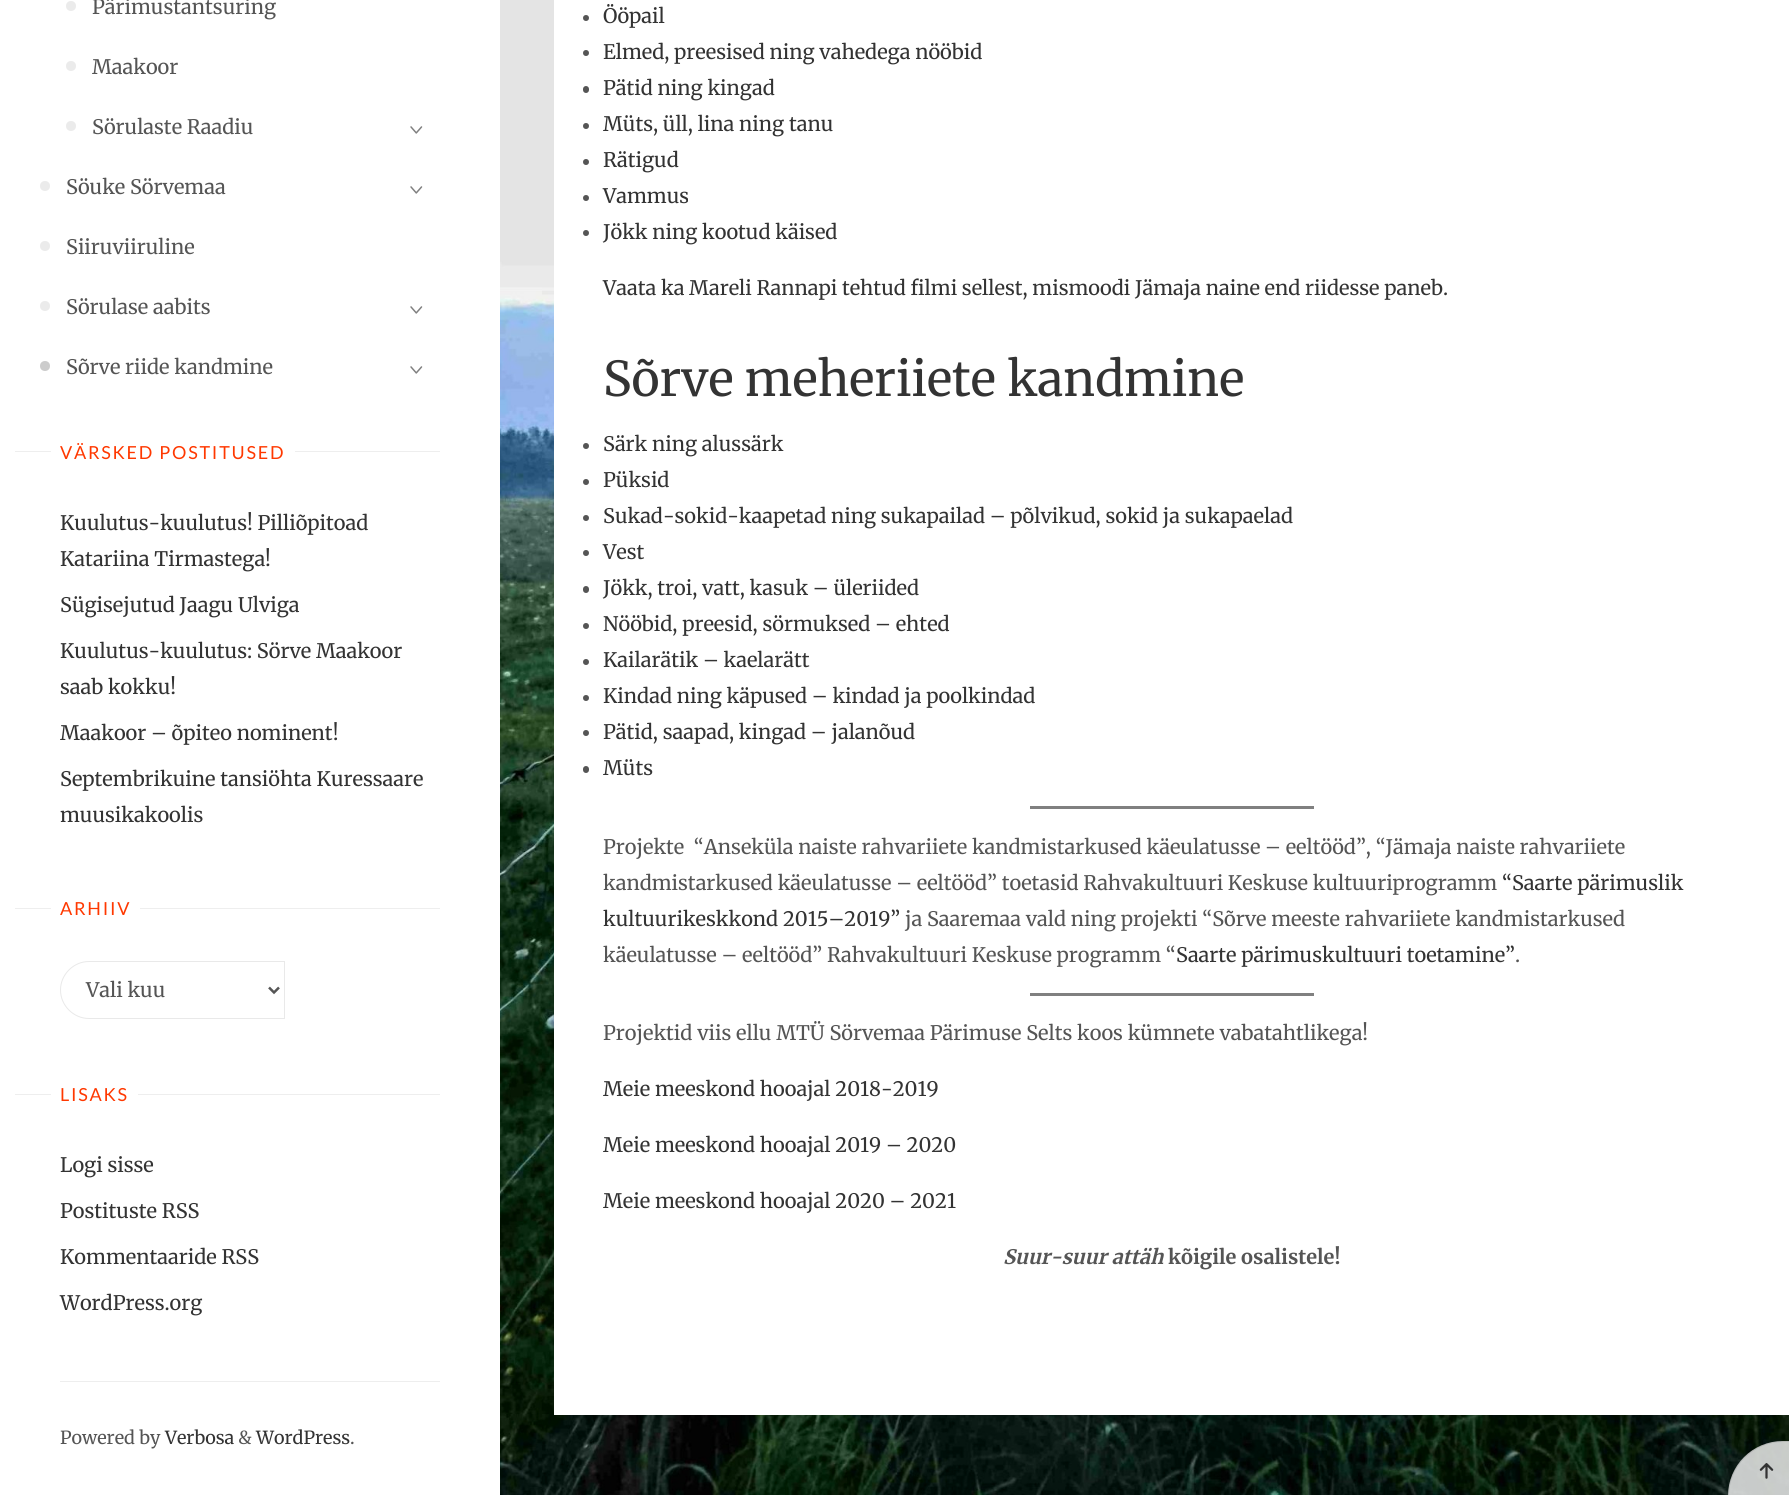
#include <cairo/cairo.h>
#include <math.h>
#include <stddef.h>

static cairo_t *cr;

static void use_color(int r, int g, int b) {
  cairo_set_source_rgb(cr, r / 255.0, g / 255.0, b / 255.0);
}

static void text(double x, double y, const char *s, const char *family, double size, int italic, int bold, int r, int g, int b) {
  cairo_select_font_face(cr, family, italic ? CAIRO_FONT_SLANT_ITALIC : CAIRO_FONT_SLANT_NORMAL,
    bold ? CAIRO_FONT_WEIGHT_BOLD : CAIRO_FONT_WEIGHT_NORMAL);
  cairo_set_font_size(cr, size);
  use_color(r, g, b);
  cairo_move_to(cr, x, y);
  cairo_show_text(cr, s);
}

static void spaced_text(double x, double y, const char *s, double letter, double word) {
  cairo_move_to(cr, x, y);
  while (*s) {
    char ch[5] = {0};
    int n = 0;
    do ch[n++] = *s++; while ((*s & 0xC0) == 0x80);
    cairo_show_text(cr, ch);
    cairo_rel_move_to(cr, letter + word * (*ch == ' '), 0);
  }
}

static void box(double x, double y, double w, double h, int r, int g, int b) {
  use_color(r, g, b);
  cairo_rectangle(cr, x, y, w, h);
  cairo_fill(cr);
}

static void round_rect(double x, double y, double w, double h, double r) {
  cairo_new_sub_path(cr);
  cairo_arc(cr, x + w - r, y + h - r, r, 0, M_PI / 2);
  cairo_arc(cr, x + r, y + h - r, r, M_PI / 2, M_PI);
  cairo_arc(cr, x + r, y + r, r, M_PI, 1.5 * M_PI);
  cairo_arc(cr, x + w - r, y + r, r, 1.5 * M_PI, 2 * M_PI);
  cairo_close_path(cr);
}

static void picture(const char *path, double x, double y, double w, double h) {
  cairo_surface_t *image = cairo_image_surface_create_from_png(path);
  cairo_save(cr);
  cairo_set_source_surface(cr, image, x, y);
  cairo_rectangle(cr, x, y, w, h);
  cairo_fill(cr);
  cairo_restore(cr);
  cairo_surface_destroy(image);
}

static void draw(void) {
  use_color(255, 255, 255);
  cairo_paint(cr);
  picture("img_01.png", 500, 0, 1289, 1495);
  use_color(235, 235, 235);
  cairo_arc(cr, 71, 6, 5, 0, 2 * M_PI);
  cairo_fill(cr);
  cairo_arc(cr, 71, 66, 5, 0, 2 * M_PI);
  cairo_fill(cr);
  cairo_arc(cr, 71, 126, 5, 0, 2 * M_PI);
  cairo_fill(cr);
  picture("img_02.png", 410, 126, 13, 8);
  cairo_arc(cr, 45, 186, 5, 0, 2 * M_PI);
  cairo_fill(cr);
  picture("img_02.png", 410, 186, 13, 8);
  cairo_arc(cr, 45, 246, 5, 0, 2 * M_PI);
  cairo_fill(cr);
  cairo_arc(cr, 45, 306, 5, 0, 2 * M_PI);
  cairo_fill(cr);
  picture("img_02.png", 410, 306, 13, 8);
  use_color(204, 204, 204);
  cairo_arc(cr, 45, 366, 5, 0, 2 * M_PI);
  cairo_fill(cr);
  picture("img_02.png", 410, 366, 13, 8);
  box(15, 451, 425, 1, 238, 238, 238);
  box(51, 451, 244, 1, 255, 255, 255);
  box(15, 908, 425, 1, 238, 238, 238);
  box(51, 908, 89, 1, 255, 255, 255);
  cairo_new_path(cr);
  cairo_move_to(cr, 89, 961.5);
  cairo_line_to(cr, 284.5, 961.5);
  cairo_line_to(cr, 284.5, 1018.5);
  cairo_line_to(cr, 89, 1018.5);
  cairo_curve_to(cr, 73.5, 1018.5, 60.5, 1005.5, 60.5, 990);
  cairo_curve_to(cr, 60.5, 974.5, 73.5, 961.5, 89, 961.5);
  cairo_close_path(cr);
  use_color(233, 233, 233);
  cairo_set_line_width(cr, 1);
  cairo_stroke(cr);
  cairo_new_path(cr);
  cairo_move_to(cr, 269, 987.5);
  cairo_line_to(cr, 274, 992.5);
  cairo_line_to(cr, 279, 987.5);
  use_color(85, 85, 85);
  cairo_set_line_width(cr, 2.5);
  cairo_stroke(cr);
  box(15, 1094, 425, 1, 238, 238, 238);
  box(51, 1094, 87, 1, 255, 255, 255);
  box(60, 1381, 380, 1, 238, 238, 238);
  box(554, 0, 1235, 1415, 255, 255, 255);
  use_color(85, 85, 85);
  cairo_arc(cr, 586, 18, 3, 0, 2 * M_PI);
  cairo_fill(cr);
  cairo_arc(cr, 586, 53, 3, 0, 2 * M_PI);
  cairo_fill(cr);
  round_rect(583, 86, 6, 7, 3);
  cairo_fill(cr);
  cairo_arc(cr, 586, 126, 3, 0, 2 * M_PI);
  cairo_fill(cr);
  cairo_arc(cr, 586, 162, 3, 0, 2 * M_PI);
  cairo_fill(cr);
  cairo_arc(cr, 586, 198, 3, 0, 2 * M_PI);
  cairo_fill(cr);
  cairo_arc(cr, 586, 233, 3, 0, 2 * M_PI);
  cairo_fill(cr);
  cairo_arc(cr, 586, 446, 3, 0, 2 * M_PI);
  cairo_fill(cr);
  cairo_arc(cr, 586, 482, 3, 0, 2 * M_PI);
  cairo_fill(cr);
  cairo_arc(cr, 586, 518, 3, 0, 2 * M_PI);
  cairo_fill(cr);
  cairo_arc(cr, 586, 553, 3, 0, 2 * M_PI);
  cairo_fill(cr);
  round_rect(583, 586, 6, 7, 3);
  cairo_fill(cr);
  cairo_arc(cr, 586, 626, 3, 0, 2 * M_PI);
  cairo_fill(cr);
  cairo_arc(cr, 586, 662, 3, 0, 2 * M_PI);
  cairo_fill(cr);
  cairo_arc(cr, 586, 698, 3, 0, 2 * M_PI);
  cairo_fill(cr);
  cairo_arc(cr, 586, 733, 3, 0, 2 * M_PI);
  cairo_fill(cr);
  round_rect(583, 766, 6, 7, 3);
  cairo_fill(cr);
  box(1030, 806, 284, 3, 128, 128, 128);
  box(1030, 993, 284, 3, 128, 128, 128);
  cairo_set_source_rgba(cr, 0.98, 0.98, 0.98, 0.8);
  cairo_new_path(cr);
  cairo_move_to(cr, 1783, 1441);
  cairo_line_to(cr, 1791, 1441);
  cairo_line_to(cr, 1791, 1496);
  cairo_line_to(cr, 1728, 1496);
  cairo_curve_to(cr, 1728, 1465.5, 1752.5, 1441, 1783, 1441);
  cairo_close_path(cr);
  cairo_fill(cr);
  cairo_new_path(cr);
  cairo_move_to(cr, 1783, 1441.5);
  cairo_line_to(cr, 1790.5, 1441.5);
  cairo_line_to(cr, 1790.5, 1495.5);
  cairo_line_to(cr, 1728.5, 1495.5);
  cairo_line_to(cr, 1728.5, 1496);
  cairo_curve_to(cr, 1728.5, 1466, 1753, 1441.5, 1783, 1441.5);
  cairo_close_path(cr);
  cairo_set_source_rgba(cr, 0, 0, 0, 0.1);
  cairo_set_line_width(cr, 1);
  cairo_stroke(cr);
  picture("img_03.png", 1759, 1463, 15, 16);
  text(92, 14, "Pärimustantsuring", "Merriweather", 20, 0, 0, 85, 85, 85);
  text(92, 74, "Maakoor", "Merriweather", 20, 0, 0, 85, 85, 85);
  text(92, 134, "Sörulaste Raadiu", "Merriweather", 20, 0, 0, 85, 85, 85);
  text(66, 194, "Söuke Sörvemaa", "Merriweather", 20, 0, 0, 85, 85, 85);
  text(66, 254, "Siiruviiruline", "Merriweather", 20, 0, 0, 85, 85, 85);
  text(66, 314, "Sörulase aabits", "Merriweather", 20, 0, 0, 85, 85, 85);
  text(66, 374, "Sõrve riide kandmine", "Merriweather", 20, 0, 0, 85, 85, 85);
  cairo_select_font_face(cr, "Lato", CAIRO_FONT_SLANT_NORMAL, CAIRO_FONT_WEIGHT_NORMAL);
  cairo_set_font_size(cr, 18);
  use_color(255, 56, 0);
  spaced_text(60, 459, "VÄRSKED POSTITUSED", 1.75, 0);
  text(60, 530, "Kuulutus-kuulutus! Pilliõpitoad", "Merriweather", 20, 0, 0, 51, 51, 51);
  text(60, 566, "Katariina Tirmastega!", "Merriweather", 20, 0, 0, 51, 51, 51);
  text(60, 612, "Sügisejutud Jaagu Ulviga", "Merriweather", 20, 0, 0, 51, 51, 51);
  text(60, 658, "Kuulutus-kuulutus: Sörve Maakoor", "Merriweather", 20, 0, 0, 51, 51, 51);
  text(60, 694, "saab kokku!", "Merriweather", 20, 0, 0, 51, 51, 51);
  text(60, 740, "Maakoor – õpiteo nominent!", "Merriweather", 20, 0, 0, 51, 51, 51);
  text(60, 786, "Septembrikuine tansiöhta Kuressaare", "Merriweather", 20, 0, 0, 51, 51, 51);
  text(60, 822, "muusikakoolis", "Merriweather", 20, 0, 0, 51, 51, 51);
  cairo_select_font_face(cr, "Lato", CAIRO_FONT_SLANT_NORMAL, CAIRO_FONT_WEIGHT_NORMAL);
  cairo_set_font_size(cr, 18);
  use_color(255, 56, 0);
  spaced_text(60, 915, "ARHIIV", 1.75, 0);
  text(86, 997, "Vali kuu", "Merriweather", 20, 0, 0, 85, 85, 85);
  cairo_select_font_face(cr, "Lato", CAIRO_FONT_SLANT_NORMAL, CAIRO_FONT_WEIGHT_NORMAL);
  cairo_set_font_size(cr, 18);
  use_color(255, 56, 0);
  spaced_text(60, 1101, "LISAKS", 1.75, 0);
  text(60, 1172, "Logi sisse", "Merriweather", 20, 0, 0, 51, 51, 51);
  text(60, 1218, "Postituste RSS", "Merriweather", 20, 0, 0, 51, 51, 51);
  text(60, 1264, "Kommentaaride RSS", "Merriweather", 20, 0, 0, 51, 51, 51);
  text(60, 1310, "WordPress.org", "Merriweather", 20, 0, 0, 51, 51, 51);
  text(60, 1444, "Powered by", "Merriweather", 18, 0, 0, 85, 85, 85);
  text(165, 1444, "Verbosa", "Merriweather", 18, 0, 0, 51, 51, 51);
  text(238, 1444, "&", "Merriweather", 18, 0, 0, 85, 85, 85);
  text(256, 1444, "WordPress", "Merriweather", 18, 0, 0, 51, 51, 51);
  text(350, 1444, ".", "Merriweather", 18, 0, 0, 85, 85, 85);
  text(603, 23, "Ööpail", "Merriweather", 20, 0, 0, 51, 51, 51);
  text(603, 59, "Elmed, preesised ning vahedega nööbid", "Merriweather", 20, 0, 0, 51, 51, 51);
  text(603, 95, "Pätid ning kingad", "Merriweather", 20, 0, 0, 51, 51, 51);
  text(603, 131, "Müts, üll, lina ning tanu", "Merriweather", 20, 0, 0, 51, 51, 51);
  text(603, 167, "Rätigud", "Merriweather", 20, 0, 0, 51, 51, 51);
  text(603, 203, "Vammus", "Merriweather", 20, 0, 0, 51, 51, 51);
  text(603, 239, "Jökk ning kootud käised", "Merriweather", 20, 0, 0, 51, 51, 51);
  text(603, 295, "Vaata ka Mareli Rannapi tehtud filmi sellest, mismoodi Jämaja naine end riidesse paneb.", "Merriweather", 20, 0, 0, 51, 51, 51);
  text(603, 396, "Sõrve meheriiete kandmine", "Merriweather", 48, 0, 0, 51, 51, 51);
  text(603, 451, "Särk ning alussärk", "Merriweather", 20, 0, 0, 51, 51, 51);
  text(603, 487, "Püksid", "Merriweather", 20, 0, 0, 51, 51, 51);
  text(603, 523, "Sukad-sokid-kaapetad ning sukapailad – põlvikud, sokid ja sukapaelad", "Merriweather", 20, 0, 0, 51, 51, 51);
  text(603, 559, "Vest", "Merriweather", 20, 0, 0, 51, 51, 51);
  text(603, 595, "Jökk, troi, vatt, kasuk – üleriided", "Merriweather", 20, 0, 0, 51, 51, 51);
  text(603, 631, "Nööbid, preesid, sörmuksed – ehted", "Merriweather", 20, 0, 0, 51, 51, 51);
  text(603, 667, "Kailarätik – kaelarätt", "Merriweather", 20, 0, 0, 51, 51, 51);
  text(603, 703, "Kindad ning käpused – kindad ja poolkindad", "Merriweather", 20, 0, 0, 51, 51, 51);
  text(603, 739, "Pätid, saapad, kingad – jalanõud", "Merriweather", 20, 0, 0, 51, 51, 51);
  text(603, 775, "Müts", "Merriweather", 20, 0, 0, 51, 51, 51);
  text(603, 854, "Projekte  “Anseküla naiste rahvariiete kandmistarkused käeulatusse – eeltööd”, “Jämaja naiste rahvariiete", "Merriweather", 20, 0, 0, 85, 85, 85);
  text(603, 890, "kandmistarkused käeulatusse – eeltööd” toetasid Rahvakultuuri Keskuse kultuuriprogramm", "Merriweather", 20, 0, 0, 85, 85, 85);
  text(1502, 890, "“Saarte pärimuslik", "Merriweather", 20, 0, 0, 51, 51, 51);
  text(603, 926, "kultuurikeskkond 2015–2019”", "Merriweather", 20, 0, 0, 51, 51, 51);
  text(905, 926, "ja Saaremaa vald ning projekti “Sõrve meeste rahvariiete kandmistarkused", "Merriweather", 20, 0, 0, 85, 85, 85);
  text(603, 962, "käeulatusse – eeltööd” Rahvakultuuri Keskuse programm “", "Merriweather", 20, 0, 0, 85, 85, 85);
  text(1176, 962, "Saarte pärimuskultuuri toetamine”", "Merriweather", 20, 0, 0, 51, 51, 51);
  text(1515, 962, ".", "Merriweather", 20, 0, 0, 85, 85, 85);
  text(603, 1040, "Projektid viis ellu MTÜ Sörvemaa Pärimuse Selts koos kümnete vabatahtlikega!", "Merriweather", 20, 0, 0, 85, 85, 85);
  text(603, 1096, "Meie meeskond hooajal 2018-2019", "Merriweather", 20, 0, 0, 51, 51, 51);
  text(603, 1152, "Meie meeskond hooajal 2019 – 2020", "Merriweather", 20, 0, 0, 51, 51, 51);
  text(603, 1208, "Meie meeskond hooajal 2020 – 2021", "Merriweather", 20, 0, 0, 51, 51, 51);
  text(1003, 1264, "Suur-suur attäh", "Merriweather", 20, 1, 1, 85, 85, 85);
  text(1168, 1264, "kõigile osalistele!", "Merriweather", 20, 0, 1, 85, 85, 85);
}

int main(void) {
  cairo_surface_t *surface = cairo_image_surface_create(CAIRO_FORMAT_RGB24, 1789, 1495);
  cr = cairo_create(surface);
  cairo_font_options_t *options = cairo_font_options_create();
  cairo_font_options_set_hint_metrics(options, CAIRO_HINT_METRICS_OFF);
  cairo_font_options_set_hint_style(options, CAIRO_HINT_STYLE_NONE);
  cairo_set_font_options(cr, options);
  cairo_set_miter_limit(cr, 4);
  draw();
  cairo_surface_write_to_png(surface, "out.png");
  cairo_font_options_destroy(options);
  cairo_destroy(cr);
  cairo_surface_destroy(surface);
  return 0;
}
